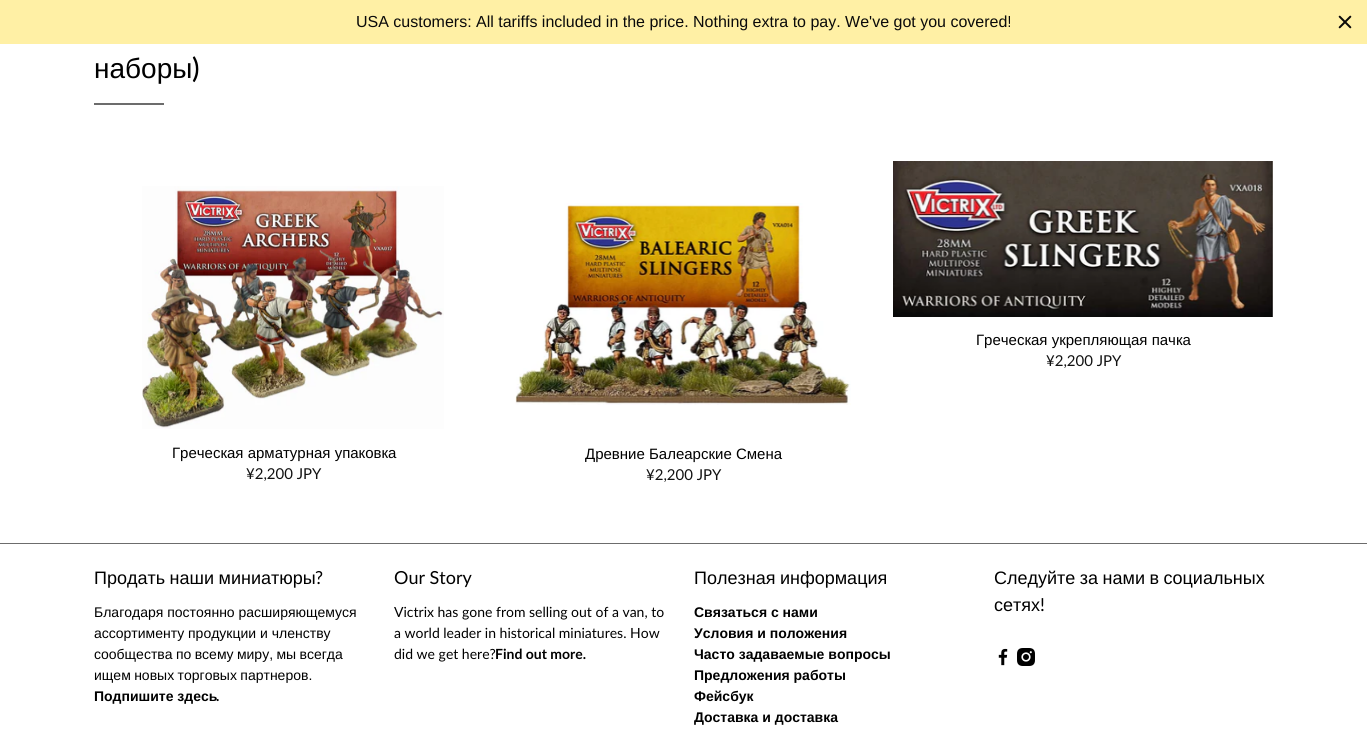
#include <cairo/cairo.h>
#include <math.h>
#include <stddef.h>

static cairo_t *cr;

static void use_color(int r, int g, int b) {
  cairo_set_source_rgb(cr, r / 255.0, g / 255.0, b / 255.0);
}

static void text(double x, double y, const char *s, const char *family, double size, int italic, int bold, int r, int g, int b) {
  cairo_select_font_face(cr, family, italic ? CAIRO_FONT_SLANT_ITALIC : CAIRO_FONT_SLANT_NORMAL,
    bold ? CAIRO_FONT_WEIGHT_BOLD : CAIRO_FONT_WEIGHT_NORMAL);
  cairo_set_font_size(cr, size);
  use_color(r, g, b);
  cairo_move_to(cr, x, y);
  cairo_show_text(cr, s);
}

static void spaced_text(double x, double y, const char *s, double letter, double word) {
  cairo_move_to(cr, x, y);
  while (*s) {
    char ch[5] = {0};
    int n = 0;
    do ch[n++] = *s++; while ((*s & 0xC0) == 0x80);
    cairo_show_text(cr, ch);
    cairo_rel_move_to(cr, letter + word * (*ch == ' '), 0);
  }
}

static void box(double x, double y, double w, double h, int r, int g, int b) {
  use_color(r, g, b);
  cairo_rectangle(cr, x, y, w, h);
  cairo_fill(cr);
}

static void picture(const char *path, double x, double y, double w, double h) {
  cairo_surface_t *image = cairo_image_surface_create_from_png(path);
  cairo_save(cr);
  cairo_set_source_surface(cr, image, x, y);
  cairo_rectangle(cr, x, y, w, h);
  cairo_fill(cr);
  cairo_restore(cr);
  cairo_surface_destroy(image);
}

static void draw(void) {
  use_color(255, 255, 255);
  cairo_paint(cr);
  box(0, 0, 1367, 44, 255, 240, 165);
  picture("img_01.png", 1338, 15, 14, 14);
  box(94, 103, 70, 2, 108, 108, 108);
  picture("img_02.png", 893, 161, 380, 156);
  picture("img_03.png", 142, 186, 302, 243);
  picture("img_04.png", 515, 203, 336, 202);
  box(0, 543, 1367, 1, 108, 108, 108);
  picture("img_05.png", 998, 648, 10, 18);
  picture("img_06.png", 1017, 648, 18, 18);
  text(356, 27, "USA customers: All tariffs included in the price. Nothing extra to pay. We've got you covered!", "Liberation Sans", 16, 0, 0, 10, 10, 10);
  text(94, 78, "наборы", "Liberation Sans", 28, 0, 0, 0, 0, 0);
  text(192, 78, ")", "Lato Medium", 28, 0, 0, 0, 0, 0);
  text(976, 345, "Греческая укрепляющая пачка", "Liberation Sans", 15, 0, 0, 0, 0, 0);
  text(1046, 366, "¥2,200 JPY", "Lato", 15, 0, 0, 17, 17, 17);
  text(172, 458, "Греческая арматурная упаковка", "Liberation Sans", 15, 0, 0, 0, 0, 0);
  text(246, 479, "¥2,200 JPY", "Lato", 15, 0, 0, 17, 17, 17);
  text(585, 459, "Древние Балеарские Смена", "Liberation Sans", 15, 0, 0, 0, 0, 0);
  text(646, 480, "¥2,200 JPY", "Lato", 15, 0, 0, 17, 17, 17);
  cairo_select_font_face(cr, "Liberation Sans", CAIRO_FONT_SLANT_NORMAL, CAIRO_FONT_WEIGHT_NORMAL);
  cairo_set_font_size(cr, 18);
  use_color(0, 0, 0);
  spaced_text(94, 584, "Продать наши миниатюры", 0, -0.5);
  text(315, 584, "?", "Lato", 18, 0, 0, 0, 0, 0);
  text(94, 617, "Благодаря постоянно расширяющемуся", "Liberation Sans", 14, 0, 0, 0, 0, 0);
  text(94, 638, "ассортименту продукции и членству", "Liberation Sans", 14, 0, 0, 0, 0, 0);
  spaced_text(94, 659, "сообщества по всему миру, мы всегда", 0, -0.5);
  spaced_text(94, 680, "ищем новых торговых партнеров.", 0, -0.5);
  text(94, 701, "Подпишите здесь", "Liberation Sans", 14, 0, 1, 0, 0, 0);
  text(216, 701, ".", "Lato", 14, 0, 1, 0, 0, 0);
  text(394, 584, "Our Story", "Lato", 18, 0, 0, 0, 0, 0);
  text(394, 617, "Victrix has gone from selling out of a van, to", "Lato", 14, 0, 0, 0, 0, 0);
  text(394, 638, "a world leader in historical miniatures. How", "Lato", 14, 0, 0, 0, 0, 0);
  text(394, 659, "did we get here?", "Lato", 14, 0, 0, 0, 0, 0);
  text(495, 659, "Find out more.", "Lato", 14, 0, 1, 0, 0, 0);
  cairo_select_font_face(cr, "Liberation Sans", CAIRO_FONT_SLANT_NORMAL, CAIRO_FONT_WEIGHT_NORMAL);
  cairo_set_font_size(cr, 18);
  spaced_text(694, 584, "Полезная информация", 0, -0.5);
  text(694, 617, "Связаться с нами", "Liberation Sans", 14, 0, 1, 0, 0, 0);
  text(694, 638, "Условия и положения", "Liberation Sans", 14, 0, 1, 0, 0, 0);
  text(694, 659, "Часто задаваемые вопросы", "Liberation Sans", 14, 0, 1, 0, 0, 0);
  text(694, 680, "Предложения работы", "Liberation Sans", 14, 0, 1, 0, 0, 0);
  text(694, 701, "Фейсбук", "Liberation Sans", 14, 0, 1, 0, 0, 0);
  text(694, 722, "Доставка и доставка", "Liberation Sans", 14, 0, 1, 0, 0, 0);
  cairo_select_font_face(cr, "Liberation Sans", CAIRO_FONT_SLANT_NORMAL, CAIRO_FONT_WEIGHT_NORMAL);
  cairo_set_font_size(cr, 18);
  spaced_text(994, 584, "Следуйте за нами в социальных", 0, -0.5);
  text(994, 611, "сетях", "Liberation Sans", 18, 0, 0, 0, 0, 0);
  text(1040, 611, "!", "Lato", 18, 0, 0, 0, 0, 0);
}

int main(void) {
  cairo_surface_t *surface = cairo_image_surface_create(CAIRO_FORMAT_RGB24, 1367, 740);
  cr = cairo_create(surface);
  cairo_font_options_t *options = cairo_font_options_create();
  cairo_font_options_set_hint_metrics(options, CAIRO_HINT_METRICS_OFF);
  cairo_font_options_set_hint_style(options, CAIRO_HINT_STYLE_NONE);
  cairo_set_font_options(cr, options);
  cairo_set_miter_limit(cr, 4);
  draw();
  cairo_surface_write_to_png(surface, "out.png");
  cairo_font_options_destroy(options);
  cairo_destroy(cr);
  cairo_surface_destroy(surface);
  return 0;
}
